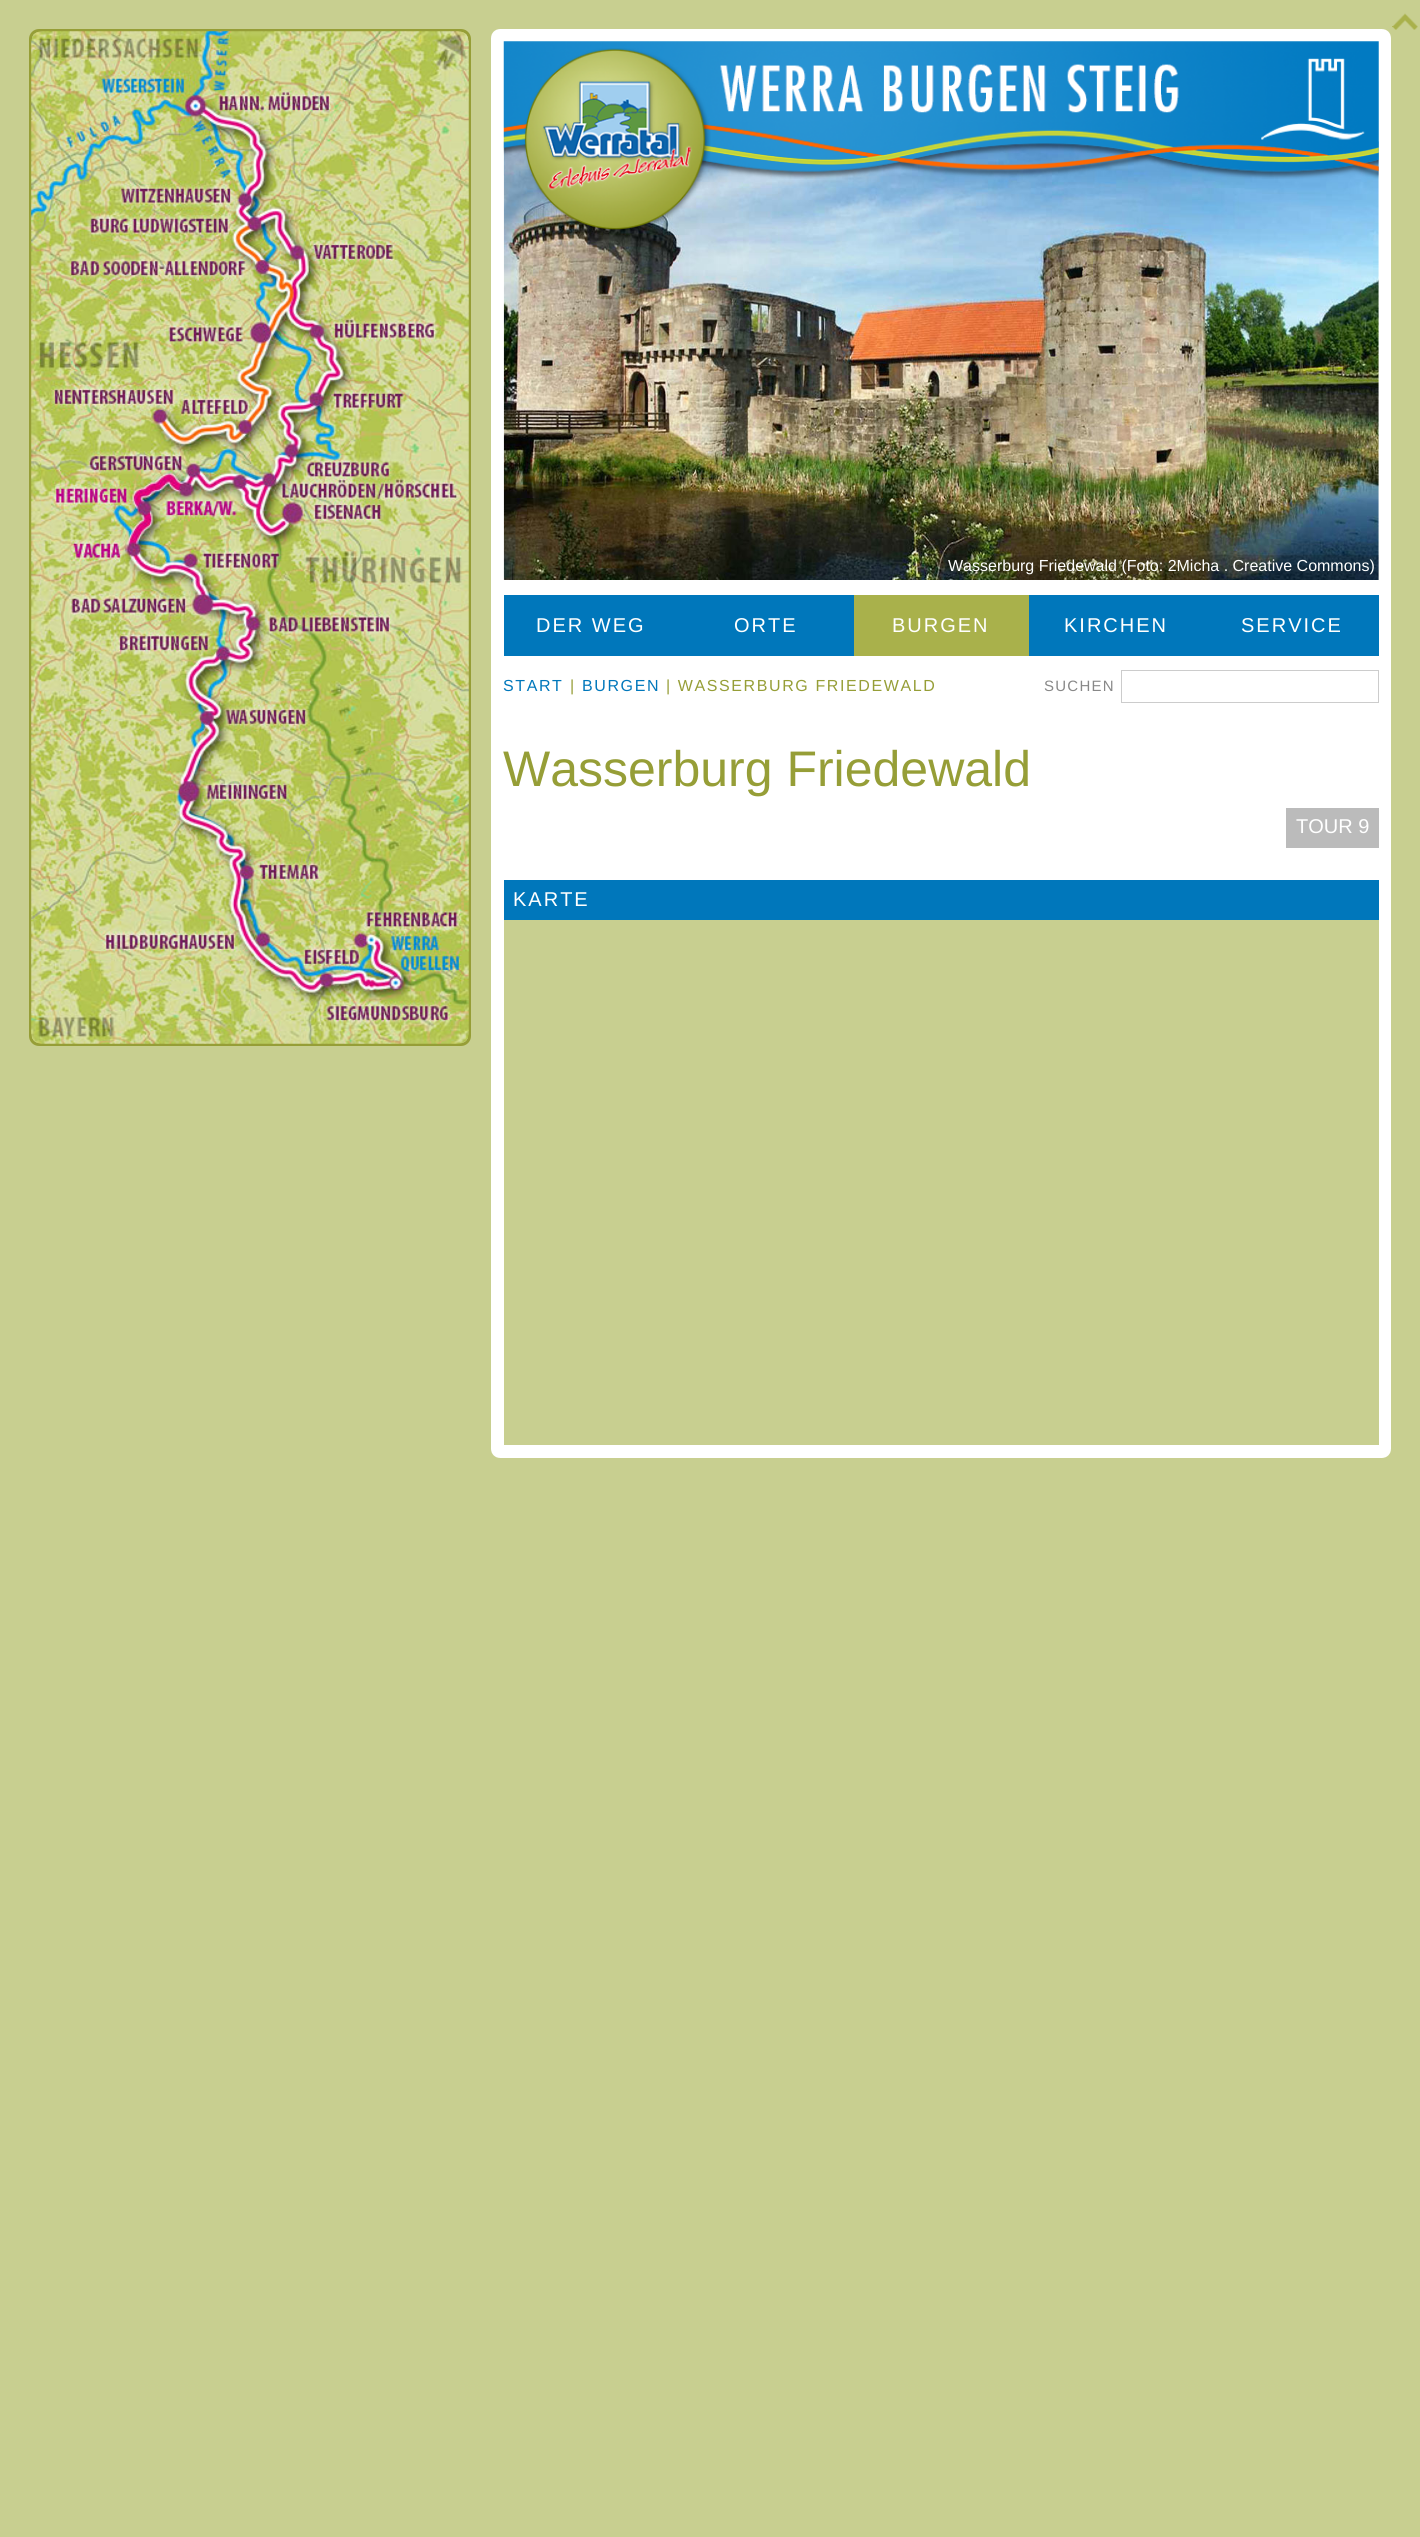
#include <cairo/cairo.h>
#include <math.h>
#include <stddef.h>

static cairo_t *cr;

static void use_color(int r, int g, int b) {
  cairo_set_source_rgb(cr, r / 255.0, g / 255.0, b / 255.0);
}

static void text(double x, double y, const char *s, const char *family, double size, int italic, int bold, int r, int g, int b) {
  cairo_select_font_face(cr, family, italic ? CAIRO_FONT_SLANT_ITALIC : CAIRO_FONT_SLANT_NORMAL,
    bold ? CAIRO_FONT_WEIGHT_BOLD : CAIRO_FONT_WEIGHT_NORMAL);
  cairo_set_font_size(cr, size);
  use_color(r, g, b);
  cairo_move_to(cr, x, y);
  cairo_show_text(cr, s);
}

static void spaced_text(double x, double y, const char *s, double letter, double word) {
  cairo_move_to(cr, x, y);
  while (*s) {
    char ch[5] = {0};
    int n = 0;
    do ch[n++] = *s++; while ((*s & 0xC0) == 0x80);
    cairo_show_text(cr, ch);
    cairo_rel_move_to(cr, letter + word * (*ch == ' '), 0);
  }
}

static void box(double x, double y, double w, double h, int r, int g, int b) {
  use_color(r, g, b);
  cairo_rectangle(cr, x, y, w, h);
  cairo_fill(cr);
}

static void round_rect(double x, double y, double w, double h, double r) {
  cairo_new_sub_path(cr);
  cairo_arc(cr, x + w - r, y + h - r, r, 0, M_PI / 2);
  cairo_arc(cr, x + r, y + h - r, r, M_PI / 2, M_PI);
  cairo_arc(cr, x + r, y + r, r, M_PI, 1.5 * M_PI);
  cairo_arc(cr, x + w - r, y + r, r, 1.5 * M_PI, 2 * M_PI);
  cairo_close_path(cr);
}

static void picture(const char *path, double x, double y, double w, double h) {
  cairo_surface_t *image = cairo_image_surface_create_from_png(path);
  cairo_save(cr);
  cairo_set_source_surface(cr, image, x, y);
  cairo_rectangle(cr, x, y, w, h);
  cairo_fill(cr);
  cairo_restore(cr);
  cairo_surface_destroy(image);
}

static void draw(void) {
  use_color(200, 207, 144);
  cairo_paint(cr);
  round_rect(30.5, 30.5, 439, 1014, 8.5);
  use_color(150, 158, 55);
  cairo_set_line_width(cr, 3);
  cairo_stroke(cr);
  picture("img_01.png", 31, 31, 438, 1013);
  use_color(255, 255, 255);
  round_rect(497.5, 35.5, 887, 1416, 2.5);
  cairo_fill_preserve(cr);
  cairo_set_line_width(cr, 13);
  cairo_stroke(cr);
  picture("img_02.png", 1392, 13, 26, 17);
  picture("img_05.png", 503, 141, 876, 439);
  picture("img_03.png", 503, 41, 876, 138);
  picture("img_04.png", 524, 48, 187, 184);
  cairo_set_source_rgba(cr, 0, 0, 0, 0.1);
  cairo_rectangle(cr, 944, 555, 435, 25);
  cairo_fill(cr);
  box(504, 595, 350, 61, 0, 119, 187);
  box(854, 595, 175, 61, 169, 177, 75);
  box(1029, 595, 350, 61, 0, 119, 187);
  cairo_rectangle(cr, 1121.5, 670.5, 257, 32);
  use_color(204, 204, 204);
  cairo_set_line_width(cr, 1);
  cairo_stroke(cr);
  box(1286, 808, 93, 40, 187, 187, 187);
  box(504, 880, 875, 40, 0, 119, 187);
  box(504, 920, 875, 525, 200, 207, 144);
  text(948, 571, "Wasserburg Friedewald (Foto: 2Micha . Creative Commons)", "Liberation Sans", 16, 0, 0, 255, 255, 255);
  cairo_set_font_size(cr, 20);
  spaced_text(536, 632, "DER WEG", 2, 0);
  spaced_text(734, 632, "ORTE", 2, 0);
  spaced_text(892, 632, "BURGEN", 2, 0);
  spaced_text(1064, 632, "KIRCHEN", 2, 0);
  spaced_text(1241, 632, "SERVICE", 2, 0);
  cairo_set_font_size(cr, 16);
  use_color(0, 119, 187);
  spaced_text(503, 691, "START", 1.6, 0);
  use_color(150, 158, 55);
  spaced_text(570, 691, "|", 1.6, 0);
  use_color(0, 119, 187);
  spaced_text(582, 691, "BURGEN", 1.6, 0);
  use_color(150, 158, 55);
  spaced_text(666, 691, "| WASSERBURG FRIEDEWALD", 1.6, 0);
  cairo_set_font_size(cr, 15);
  use_color(136, 136, 136);
  spaced_text(1044, 691, "SUCHEN", 1.25, 0);
  text(503, 786, "Wasserburg Friedewald", "Liberation Sans", 50, 0, 0, 150, 158, 55);
  text(1296, 833, "TOUR 9", "Liberation Sans", 20, 0, 0, 255, 255, 255);
  spaced_text(513, 906, "KARTE", 2, 0);
}

int main(void) {
  cairo_surface_t *surface = cairo_image_surface_create(CAIRO_FORMAT_RGB24, 1420, 2537);
  cr = cairo_create(surface);
  cairo_font_options_t *options = cairo_font_options_create();
  cairo_font_options_set_hint_metrics(options, CAIRO_HINT_METRICS_OFF);
  cairo_font_options_set_hint_style(options, CAIRO_HINT_STYLE_NONE);
  cairo_set_font_options(cr, options);
  cairo_set_miter_limit(cr, 4);
  draw();
  cairo_surface_write_to_png(surface, "out.png");
  cairo_font_options_destroy(options);
  cairo_destroy(cr);
  cairo_surface_destroy(surface);
  return 0;
}
